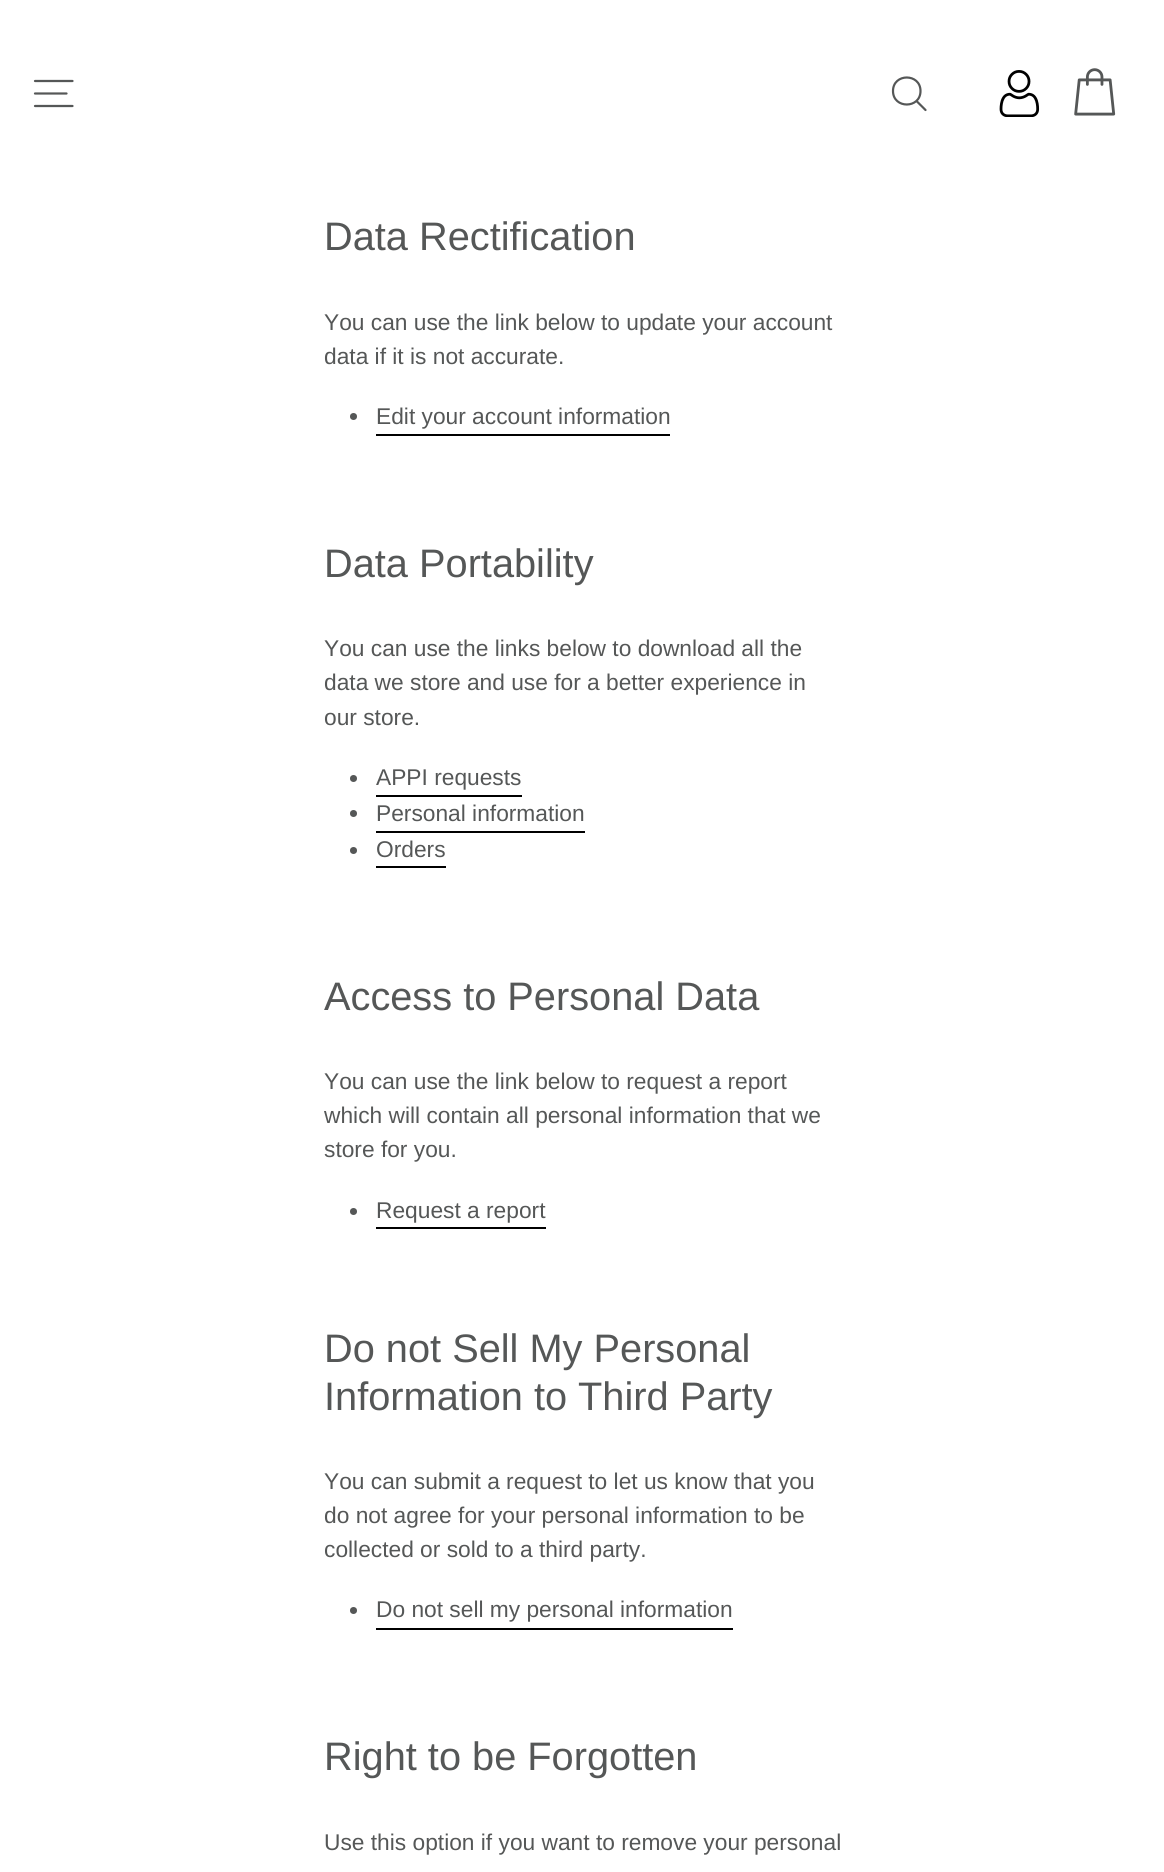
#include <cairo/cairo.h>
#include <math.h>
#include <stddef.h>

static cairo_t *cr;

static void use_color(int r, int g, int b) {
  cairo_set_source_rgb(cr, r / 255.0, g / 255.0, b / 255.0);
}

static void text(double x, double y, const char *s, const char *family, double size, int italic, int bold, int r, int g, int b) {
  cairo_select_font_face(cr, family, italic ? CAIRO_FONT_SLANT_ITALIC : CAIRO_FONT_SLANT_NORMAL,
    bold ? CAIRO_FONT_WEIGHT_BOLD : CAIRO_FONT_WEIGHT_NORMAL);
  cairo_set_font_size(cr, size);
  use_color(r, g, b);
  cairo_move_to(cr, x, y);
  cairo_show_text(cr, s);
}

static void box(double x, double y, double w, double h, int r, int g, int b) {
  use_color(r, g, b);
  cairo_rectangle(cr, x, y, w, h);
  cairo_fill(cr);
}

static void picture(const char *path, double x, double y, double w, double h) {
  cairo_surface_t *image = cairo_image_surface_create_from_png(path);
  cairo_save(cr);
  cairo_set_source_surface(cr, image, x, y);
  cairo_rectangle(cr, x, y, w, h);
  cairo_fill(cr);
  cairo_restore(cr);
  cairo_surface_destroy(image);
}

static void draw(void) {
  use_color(255, 255, 255);
  cairo_paint(cr);
  cairo_new_path(cr);
  cairo_move_to(cr, 35, 81);
  cairo_line_to(cr, 72.5, 81);
  cairo_move_to(cr, 35, 93.5);
  cairo_line_to(cr, 66.5, 93.5);
  cairo_move_to(cr, 35, 106);
  cairo_line_to(cr, 72.5, 106);
  use_color(85, 87, 87);
  cairo_set_line_width(cr, 2.2);
  cairo_set_line_cap(cr, CAIRO_LINE_CAP_ROUND);
  cairo_set_line_join(cr, CAIRO_LINE_JOIN_ROUND);
  cairo_stroke(cr);
  cairo_new_path(cr);
  cairo_move_to(cr, 920.5, 91);
  cairo_curve_to(cr, 920.5, 109, 893, 109, 893, 91);
  cairo_curve_to(cr, 893, 73, 920.5, 73, 920.5, 91);
  cairo_close_path(cr);
  cairo_move_to(cr, 925.5, 110);
  cairo_line_to(cr, 916.5, 101);
  cairo_stroke(cr);
  picture("img_01.png", 999, 70, 41, 47);
  picture("img_02.png", 1074, 68, 42, 48);
  cairo_arc(cr, 353.5, 416.5, 3.5, 0, 2 * M_PI);
  cairo_fill(cr);
  box(376, 434, 294, 2, 0, 0, 0);
  use_color(85, 87, 87);
  cairo_arc(cr, 353.5, 778.5, 3.5, 0, 2 * M_PI);
  cairo_fill(cr);
  box(376, 795, 146, 2, 0, 0, 0);
  use_color(85, 87, 87);
  cairo_arc(cr, 353.5, 813.5, 3.5, 0, 2 * M_PI);
  cairo_fill(cr);
  box(376, 831, 209, 2, 0, 0, 0);
  use_color(85, 87, 87);
  cairo_arc(cr, 353.5, 850.5, 3.5, 0, 2 * M_PI);
  cairo_fill(cr);
  box(376, 866, 70, 2, 0, 0, 0);
  use_color(85, 87, 87);
  cairo_arc(cr, 353.5, 1211.5, 3.5, 0, 2 * M_PI);
  cairo_fill(cr);
  box(376, 1227, 170, 2, 0, 0, 0);
  use_color(85, 87, 87);
  cairo_arc(cr, 353.5, 1610.5, 3.5, 0, 2 * M_PI);
  cairo_fill(cr);
  box(376, 1628, 357, 2, 0, 0, 0);
  text(324, 250, "Data Rectification", "Liberation Sans", 39.75, 0, 0, 85, 87, 87);
  text(324, 330, "You can use the link below to update your account", "Liberation Sans", 22.75, 0, 0, 85, 87, 87);
  text(324, 364, "data if it is not accurate.", "Liberation Sans", 22.75, 0, 0, 85, 87, 87);
  text(376, 424, "Edit your account information", "Liberation Sans", 22.75, 0, 0, 85, 87, 87);
  text(324, 577, "Data Portability", "Liberation Sans", 39.75, 0, 0, 85, 87, 87);
  text(324, 656, "You can use the links below to download all the", "Liberation Sans", 22.75, 0, 0, 85, 87, 87);
  text(324, 690, "data we store and use for a better experience in", "Liberation Sans", 22.75, 0, 0, 85, 87, 87);
  text(324, 725, "our store.", "Liberation Sans", 22.75, 0, 0, 85, 87, 87);
  text(376, 785, "APPI requests", "Liberation Sans", 22.75, 0, 0, 85, 87, 87);
  text(376, 821, "Personal information", "Liberation Sans", 22.75, 0, 0, 85, 87, 87);
  text(376, 857, "Orders", "Liberation Sans", 22.75, 0, 0, 85, 87, 87);
  text(324, 1010, "Access to Personal Data", "Liberation Sans", 39.75, 0, 0, 85, 87, 87);
  text(324, 1089, "You can use the link below to request a report", "Liberation Sans", 22.75, 0, 0, 85, 87, 87);
  text(324, 1123, "which will contain all personal information that we", "Liberation Sans", 22.75, 0, 0, 85, 87, 87);
  text(324, 1157, "store for you.", "Liberation Sans", 22.75, 0, 0, 85, 87, 87);
  text(376, 1218, "Request a report", "Liberation Sans", 22.75, 0, 0, 85, 87, 87);
  text(324, 1362, "Do not Sell My Personal", "Liberation Sans", 39.75, 0, 0, 85, 87, 87);
  text(324, 1410, "Information to Third Party", "Liberation Sans", 39.75, 0, 0, 85, 87, 87);
  text(324, 1489, "You can submit a request to let us know that you", "Liberation Sans", 22.75, 0, 0, 85, 87, 87);
  text(324, 1523, "do not agree for your personal information to be", "Liberation Sans", 22.75, 0, 0, 85, 87, 87);
  text(324, 1557, "collected or sold to a third party.", "Liberation Sans", 22.75, 0, 0, 85, 87, 87);
  text(376, 1617, "Do not sell my personal information", "Liberation Sans", 22.75, 0, 0, 85, 87, 87);
  text(324, 1770, "Right to be Forgotten", "Liberation Sans", 39.75, 0, 0, 85, 87, 87);
  text(324, 1850, "Use this option if you want to remove your personal", "Liberation Sans", 22.75, 0, 0, 85, 87, 87);
}

int main(void) {
  cairo_surface_t *surface = cairo_image_surface_create(CAIRO_FORMAT_RGB24, 1164, 1872);
  cr = cairo_create(surface);
  cairo_font_options_t *options = cairo_font_options_create();
  cairo_font_options_set_hint_metrics(options, CAIRO_HINT_METRICS_OFF);
  cairo_font_options_set_hint_style(options, CAIRO_HINT_STYLE_NONE);
  cairo_set_font_options(cr, options);
  cairo_set_miter_limit(cr, 4);
  draw();
  cairo_surface_write_to_png(surface, "out.png");
  cairo_font_options_destroy(options);
  cairo_destroy(cr);
  cairo_surface_destroy(surface);
  return 0;
}
